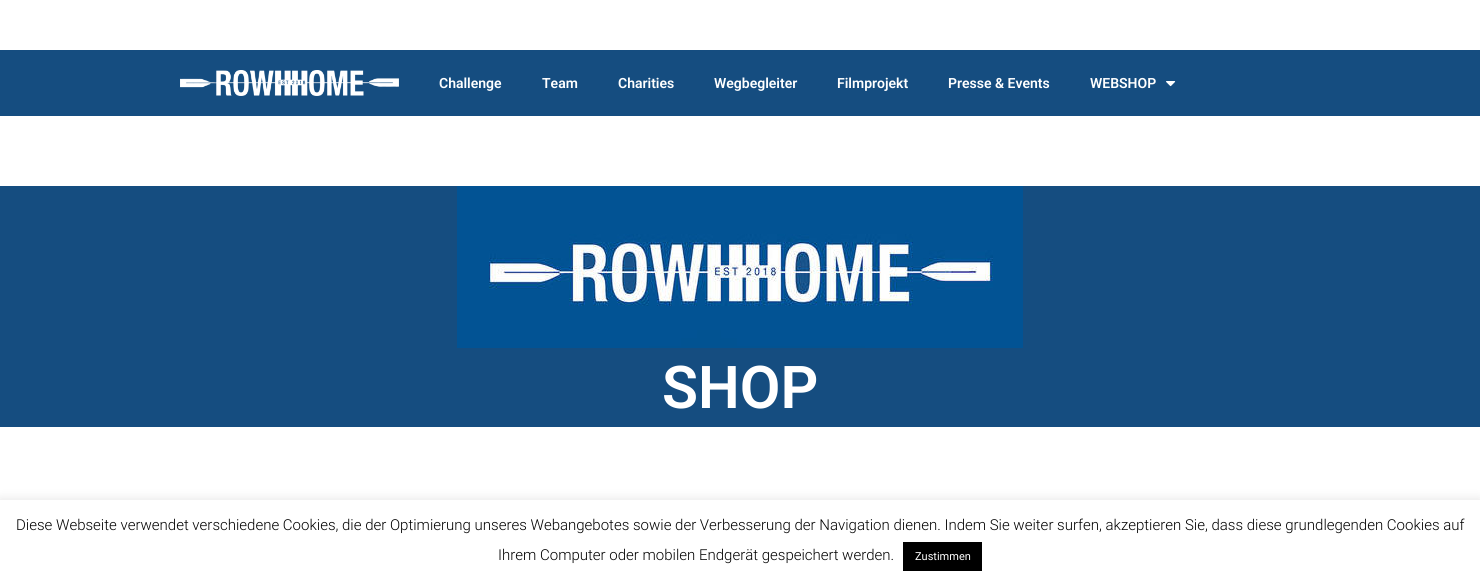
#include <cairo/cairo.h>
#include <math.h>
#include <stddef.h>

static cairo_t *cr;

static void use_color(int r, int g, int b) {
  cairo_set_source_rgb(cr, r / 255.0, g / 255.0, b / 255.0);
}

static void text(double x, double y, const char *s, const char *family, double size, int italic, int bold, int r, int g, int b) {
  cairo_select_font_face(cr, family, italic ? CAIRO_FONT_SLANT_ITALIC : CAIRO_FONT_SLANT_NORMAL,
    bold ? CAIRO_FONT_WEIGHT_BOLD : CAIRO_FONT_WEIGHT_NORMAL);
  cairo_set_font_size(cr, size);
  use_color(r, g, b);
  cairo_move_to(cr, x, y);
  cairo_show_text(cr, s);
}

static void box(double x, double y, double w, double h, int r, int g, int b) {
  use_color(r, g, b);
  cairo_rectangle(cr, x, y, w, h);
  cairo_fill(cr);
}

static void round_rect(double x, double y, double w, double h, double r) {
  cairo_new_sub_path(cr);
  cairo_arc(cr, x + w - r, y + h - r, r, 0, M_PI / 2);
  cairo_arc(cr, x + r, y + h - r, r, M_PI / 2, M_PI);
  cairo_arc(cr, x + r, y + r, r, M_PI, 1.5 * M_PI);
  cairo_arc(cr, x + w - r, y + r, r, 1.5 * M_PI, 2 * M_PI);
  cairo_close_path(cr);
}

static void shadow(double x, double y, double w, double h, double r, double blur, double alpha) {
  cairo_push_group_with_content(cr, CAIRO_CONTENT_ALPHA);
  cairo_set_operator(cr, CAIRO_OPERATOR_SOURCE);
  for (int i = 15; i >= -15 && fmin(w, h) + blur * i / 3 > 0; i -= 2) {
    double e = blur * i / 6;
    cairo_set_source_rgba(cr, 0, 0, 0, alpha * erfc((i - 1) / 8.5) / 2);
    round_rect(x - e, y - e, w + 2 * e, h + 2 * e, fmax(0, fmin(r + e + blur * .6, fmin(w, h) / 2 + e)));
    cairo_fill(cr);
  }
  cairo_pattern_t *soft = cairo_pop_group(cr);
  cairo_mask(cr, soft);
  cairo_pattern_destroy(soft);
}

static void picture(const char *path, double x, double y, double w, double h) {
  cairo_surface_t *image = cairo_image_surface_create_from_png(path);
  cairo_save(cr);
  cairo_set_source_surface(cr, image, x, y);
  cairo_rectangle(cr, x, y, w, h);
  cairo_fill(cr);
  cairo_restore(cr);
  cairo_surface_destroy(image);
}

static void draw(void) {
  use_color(255, 255, 255);
  cairo_paint(cr);
  box(0, 50, 1480, 66, 21, 77, 128);
  picture("img_01.png", 180, 70, 219, 26);
  picture("img_02.png", 1166, 81, 10, 6);
  box(0, 186, 1480, 241, 21, 77, 128);
  picture("img_03.png", 457, 186, 566, 162);
  use_color(172, 171, 171);
  shadow(0, 499, 1480, 83, 0, 5, 0.3);
  box(0, 500, 1480, 83, 255, 255, 255);
  box(903, 542, 79, 29, 0, 0, 0);
  text(439, 88, "Challenge", "Roboto SemiBold", 14, 0, 0, 255, 255, 255);
  text(542, 88, "Team", "Roboto SemiBold", 14, 0, 0, 255, 255, 255);
  text(618, 88, "Charities", "Roboto SemiBold", 14, 0, 0, 255, 255, 255);
  text(714, 88, "Wegbegleiter", "Roboto SemiBold", 14, 0, 0, 255, 255, 255);
  text(837, 88, "Filmprojekt", "Roboto SemiBold", 14, 0, 0, 255, 255, 255);
  text(948, 88, "Presse & Events", "Roboto SemiBold", 14, 0, 0, 255, 255, 255);
  text(1090, 88, "WEBSHOP", "Roboto SemiBold", 14, 0, 0, 255, 255, 255);
  text(662, 408, "SHOP", "Roboto SemiBold", 59, 0, 0, 255, 255, 255);
  text(16, 530, "Diese Webseite verwendet verschiedene Cookies, die der Optimierung unseres Webangebotes sowie der Verbesserung der Navigation dienen. Indem Sie weiter surfen, akzeptieren Sie, dass diese grundlegenden Cookies auf", "Roboto Light", 15, 0, 0, 0, 0, 0);
  text(498, 560, "Ihrem Computer oder mobilen Endgerät gespeichert werden.", "Roboto Light", 15, 0, 0, 0, 0, 0);
  text(915, 560, "Zustimmen", "Roboto", 11, 0, 0, 255, 255, 255);
}

int main(void) {
  cairo_surface_t *surface = cairo_image_surface_create(CAIRO_FORMAT_RGB24, 1480, 583);
  cr = cairo_create(surface);
  cairo_font_options_t *options = cairo_font_options_create();
  cairo_font_options_set_hint_metrics(options, CAIRO_HINT_METRICS_OFF);
  cairo_font_options_set_hint_style(options, CAIRO_HINT_STYLE_NONE);
  cairo_set_font_options(cr, options);
  cairo_set_miter_limit(cr, 4);
  draw();
  cairo_surface_write_to_png(surface, "out.png");
  cairo_font_options_destroy(options);
  cairo_destroy(cr);
  cairo_surface_destroy(surface);
  return 0;
}
